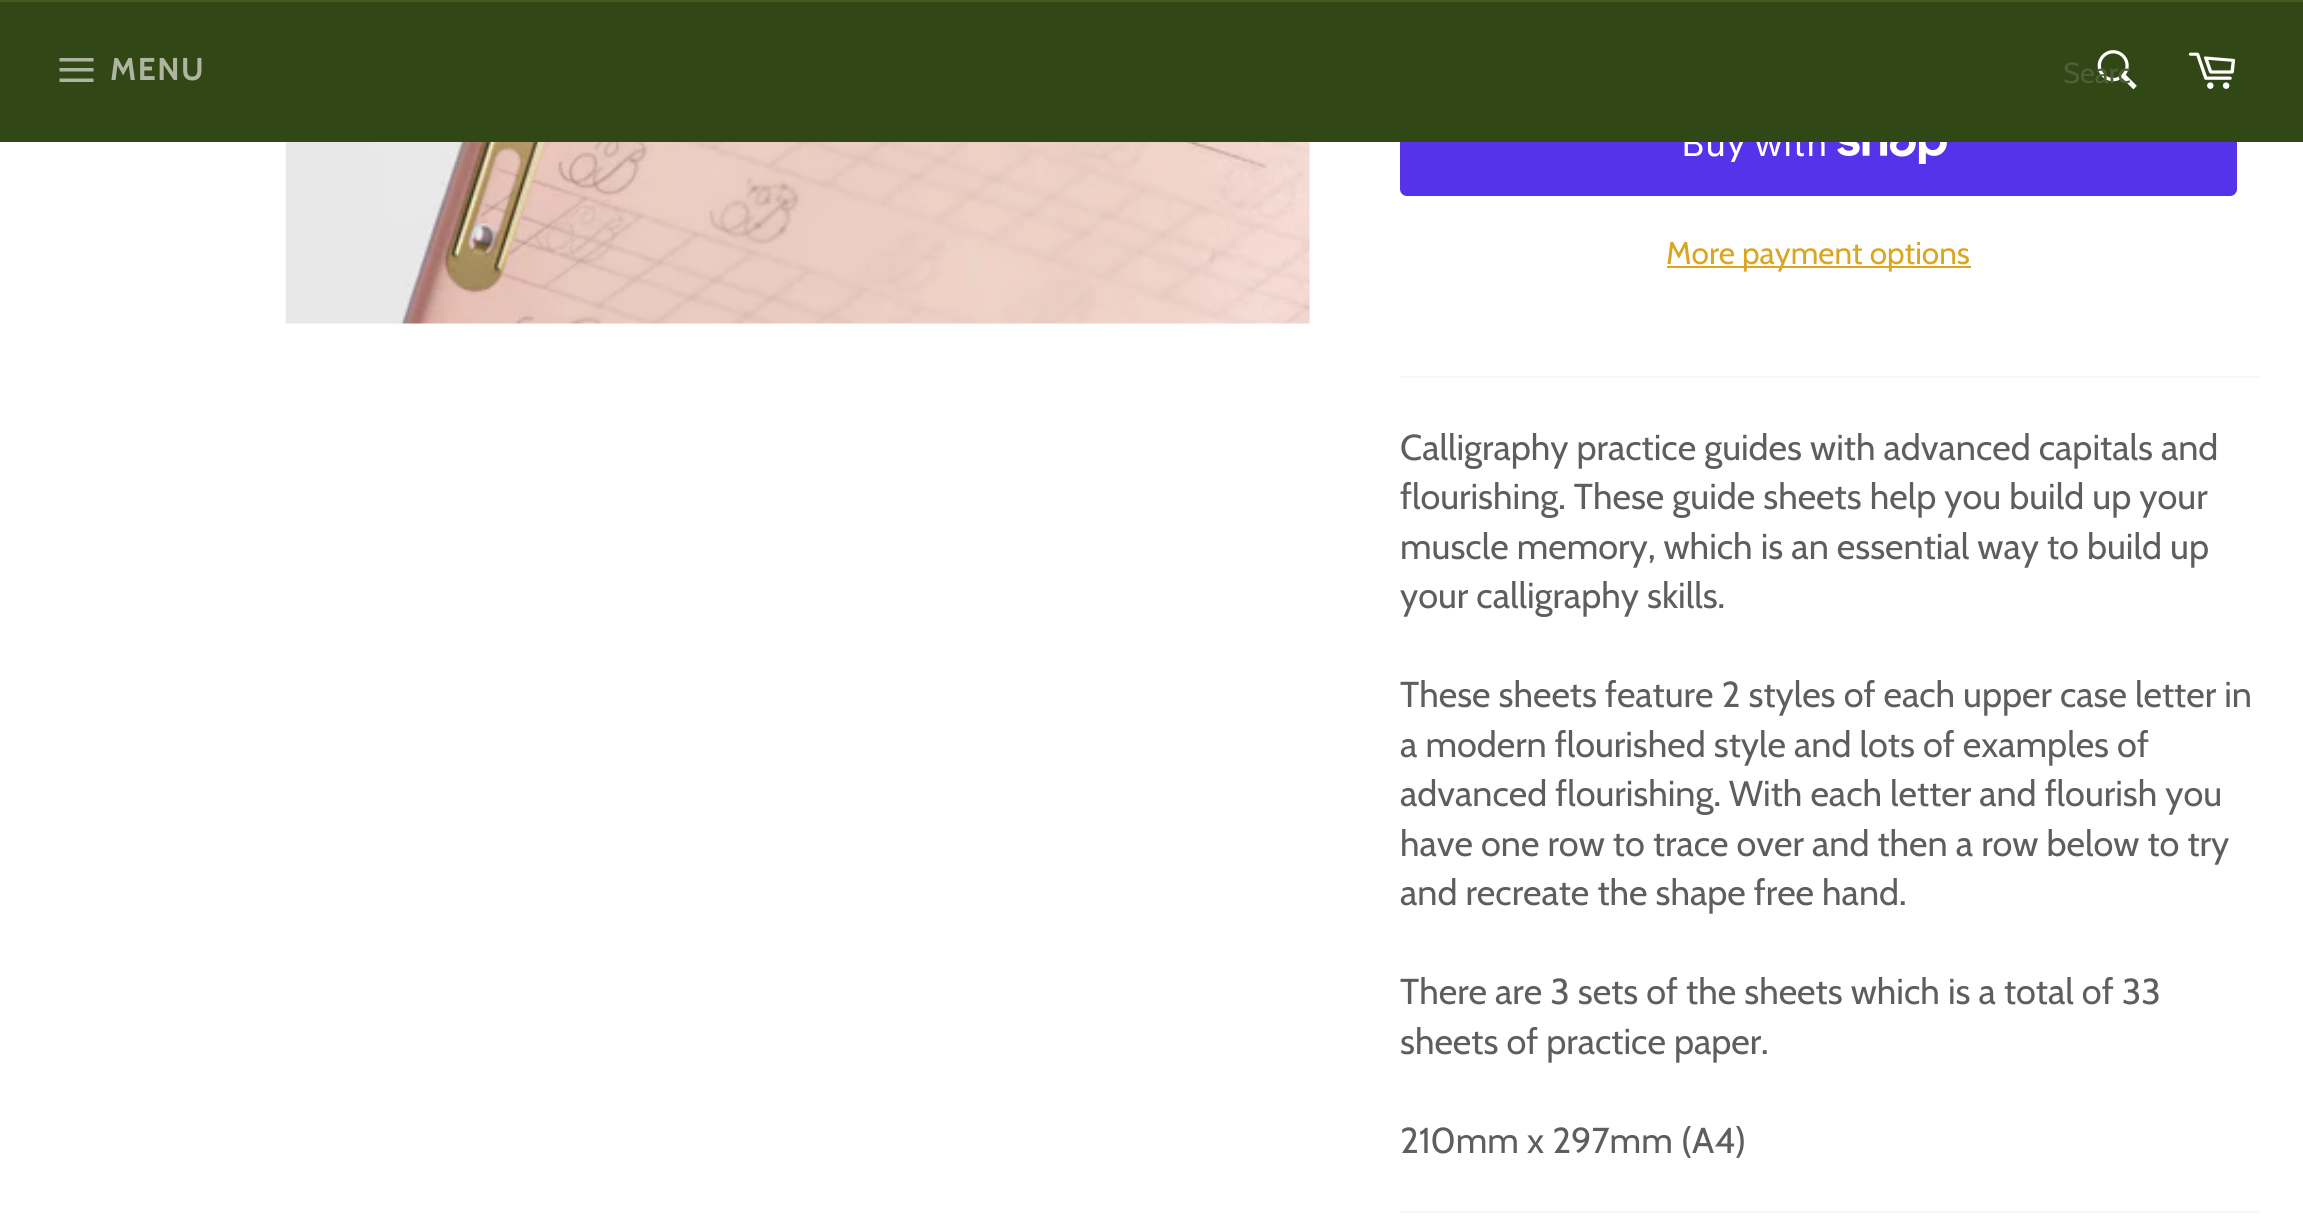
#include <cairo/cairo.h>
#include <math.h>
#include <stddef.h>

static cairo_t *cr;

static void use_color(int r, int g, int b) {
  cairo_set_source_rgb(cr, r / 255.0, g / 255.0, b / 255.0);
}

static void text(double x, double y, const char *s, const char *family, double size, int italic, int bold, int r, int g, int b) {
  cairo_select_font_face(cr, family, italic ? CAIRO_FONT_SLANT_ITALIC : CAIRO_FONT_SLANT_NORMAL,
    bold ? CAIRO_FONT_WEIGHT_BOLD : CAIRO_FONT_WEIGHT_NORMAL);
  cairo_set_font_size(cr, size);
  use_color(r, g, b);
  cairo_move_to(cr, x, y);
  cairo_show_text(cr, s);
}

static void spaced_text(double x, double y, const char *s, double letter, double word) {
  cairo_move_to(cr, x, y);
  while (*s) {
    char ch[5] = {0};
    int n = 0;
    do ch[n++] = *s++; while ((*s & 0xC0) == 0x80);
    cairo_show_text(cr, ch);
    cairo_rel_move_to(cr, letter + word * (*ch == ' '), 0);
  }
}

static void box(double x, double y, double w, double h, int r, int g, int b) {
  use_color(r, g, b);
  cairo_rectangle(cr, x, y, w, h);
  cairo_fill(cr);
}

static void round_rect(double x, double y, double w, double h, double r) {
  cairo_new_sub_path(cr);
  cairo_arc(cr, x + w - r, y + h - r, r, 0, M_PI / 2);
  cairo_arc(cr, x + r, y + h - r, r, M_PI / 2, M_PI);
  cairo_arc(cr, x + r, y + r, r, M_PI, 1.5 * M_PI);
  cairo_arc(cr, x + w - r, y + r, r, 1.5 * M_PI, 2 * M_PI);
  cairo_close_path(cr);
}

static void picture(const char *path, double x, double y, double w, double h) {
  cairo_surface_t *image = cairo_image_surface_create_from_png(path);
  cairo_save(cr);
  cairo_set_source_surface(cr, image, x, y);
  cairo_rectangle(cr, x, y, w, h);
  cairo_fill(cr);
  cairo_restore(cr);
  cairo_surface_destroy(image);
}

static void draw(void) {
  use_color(255, 255, 255);
  cairo_paint(cr);
  box(0, 0, 2303, 2, 63, 91, 27);
  picture("img_03.png", 285, 142, 1025, 182);
  use_color(84, 51, 235);
  round_rect(1400, 88, 837, 108, 7);
  cairo_fill(cr);
  picture("img_04.png", 1837, 142, 110, 22);
  box(1667, 266, 304, 2, 218, 165, 32);
  box(1400, 376, 859, 2, 247, 247, 247);
  box(1400, 1211, 859, 2, 247, 247, 247);
  text(1681, 156, "Buy with", "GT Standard", 36, 0, 0, 255, 255, 255);
  box(0, 2, 2303, 140, 49, 71, 21);
  picture("img_01.png", 2097, 50, 40, 40);
  text(2063, 83, "Searc", "Cabin", 29, 0, 0, 77, 96, 53);
  picture("img_02.png", 2188, 52, 48, 37);
  use_color(173, 181, 161);
  cairo_new_path(cr);
  cairo_move_to(cr, 59.5, 68);
  cairo_line_to(cr, 93.5, 68);
  cairo_line_to(cr, 93.5, 71.5);
  cairo_line_to(cr, 59.5, 71.5);
  cairo_close_path(cr);
  cairo_move_to(cr, 59.5, 58);
  cairo_line_to(cr, 93.5, 58);
  cairo_line_to(cr, 93.5, 61.5);
  cairo_line_to(cr, 59.5, 61.5);
  cairo_close_path(cr);
  cairo_move_to(cr, 59.5, 78.5);
  cairo_line_to(cr, 93.5, 78.5);
  cairo_line_to(cr, 93.5, 82);
  cairo_line_to(cr, 59.5, 82);
  cairo_close_path(cr);
  cairo_fill(cr);
  cairo_select_font_face(cr, "Cabin", CAIRO_FONT_SLANT_NORMAL, CAIRO_FONT_WEIGHT_BOLD);
  cairo_set_font_size(cr, 31.5);
  spaced_text(110, 80, "MENU", 1.5, 0);
  text(1666, 264, "More payment options", "Cabin", 31.5, 0, 0, 218, 165, 32);
  text(1400, 460, "Calligraphy practice guides with advanced capitals and", "Cabin", 36, 0, 0, 94, 94, 94);
  text(1400, 509, "flourishing. These guide sheets help you build up your", "Cabin", 36, 0, 0, 94, 94, 94);
  text(1400, 559, "muscle memory, which is an essential way to build up", "Cabin", 36, 0, 0, 94, 94, 94);
  text(1400, 608, "your calligraphy skills.", "Cabin", 36, 0, 0, 94, 94, 94);
  text(1400, 707, "These sheets feature 2 styles of each upper case letter in", "Cabin", 36, 0, 0, 94, 94, 94);
  text(1400, 757, "a modern flourished style and lots of examples of", "Cabin", 36, 0, 0, 94, 94, 94);
  text(1400, 806, "advanced flourishing. With each letter and flourish you", "Cabin", 36, 0, 0, 94, 94, 94);
  text(1400, 856, "have one row to trace over and then a row below to try", "Cabin", 36, 0, 0, 94, 94, 94);
  text(1400, 905, "and recreate the shape free hand.", "Cabin", 36, 0, 0, 94, 94, 94);
  text(1400, 1004, "There are 3 sets of the sheets which is a total of 33", "Cabin", 36, 0, 0, 94, 94, 94);
  text(1400, 1054, "sheets of practice paper.", "Cabin", 36, 0, 0, 94, 94, 94);
  text(1400, 1153, "210mm x 297mm (A4)", "Cabin", 36, 0, 0, 94, 94, 94);
}

int main(void) {
  cairo_surface_t *surface = cairo_image_surface_create(CAIRO_FORMAT_RGB24, 2303, 1222);
  cr = cairo_create(surface);
  cairo_font_options_t *options = cairo_font_options_create();
  cairo_font_options_set_hint_metrics(options, CAIRO_HINT_METRICS_OFF);
  cairo_font_options_set_hint_style(options, CAIRO_HINT_STYLE_NONE);
  cairo_set_font_options(cr, options);
  cairo_set_miter_limit(cr, 4);
  draw();
  cairo_surface_write_to_png(surface, "out.png");
  cairo_font_options_destroy(options);
  cairo_destroy(cr);
  cairo_surface_destroy(surface);
  return 0;
}
